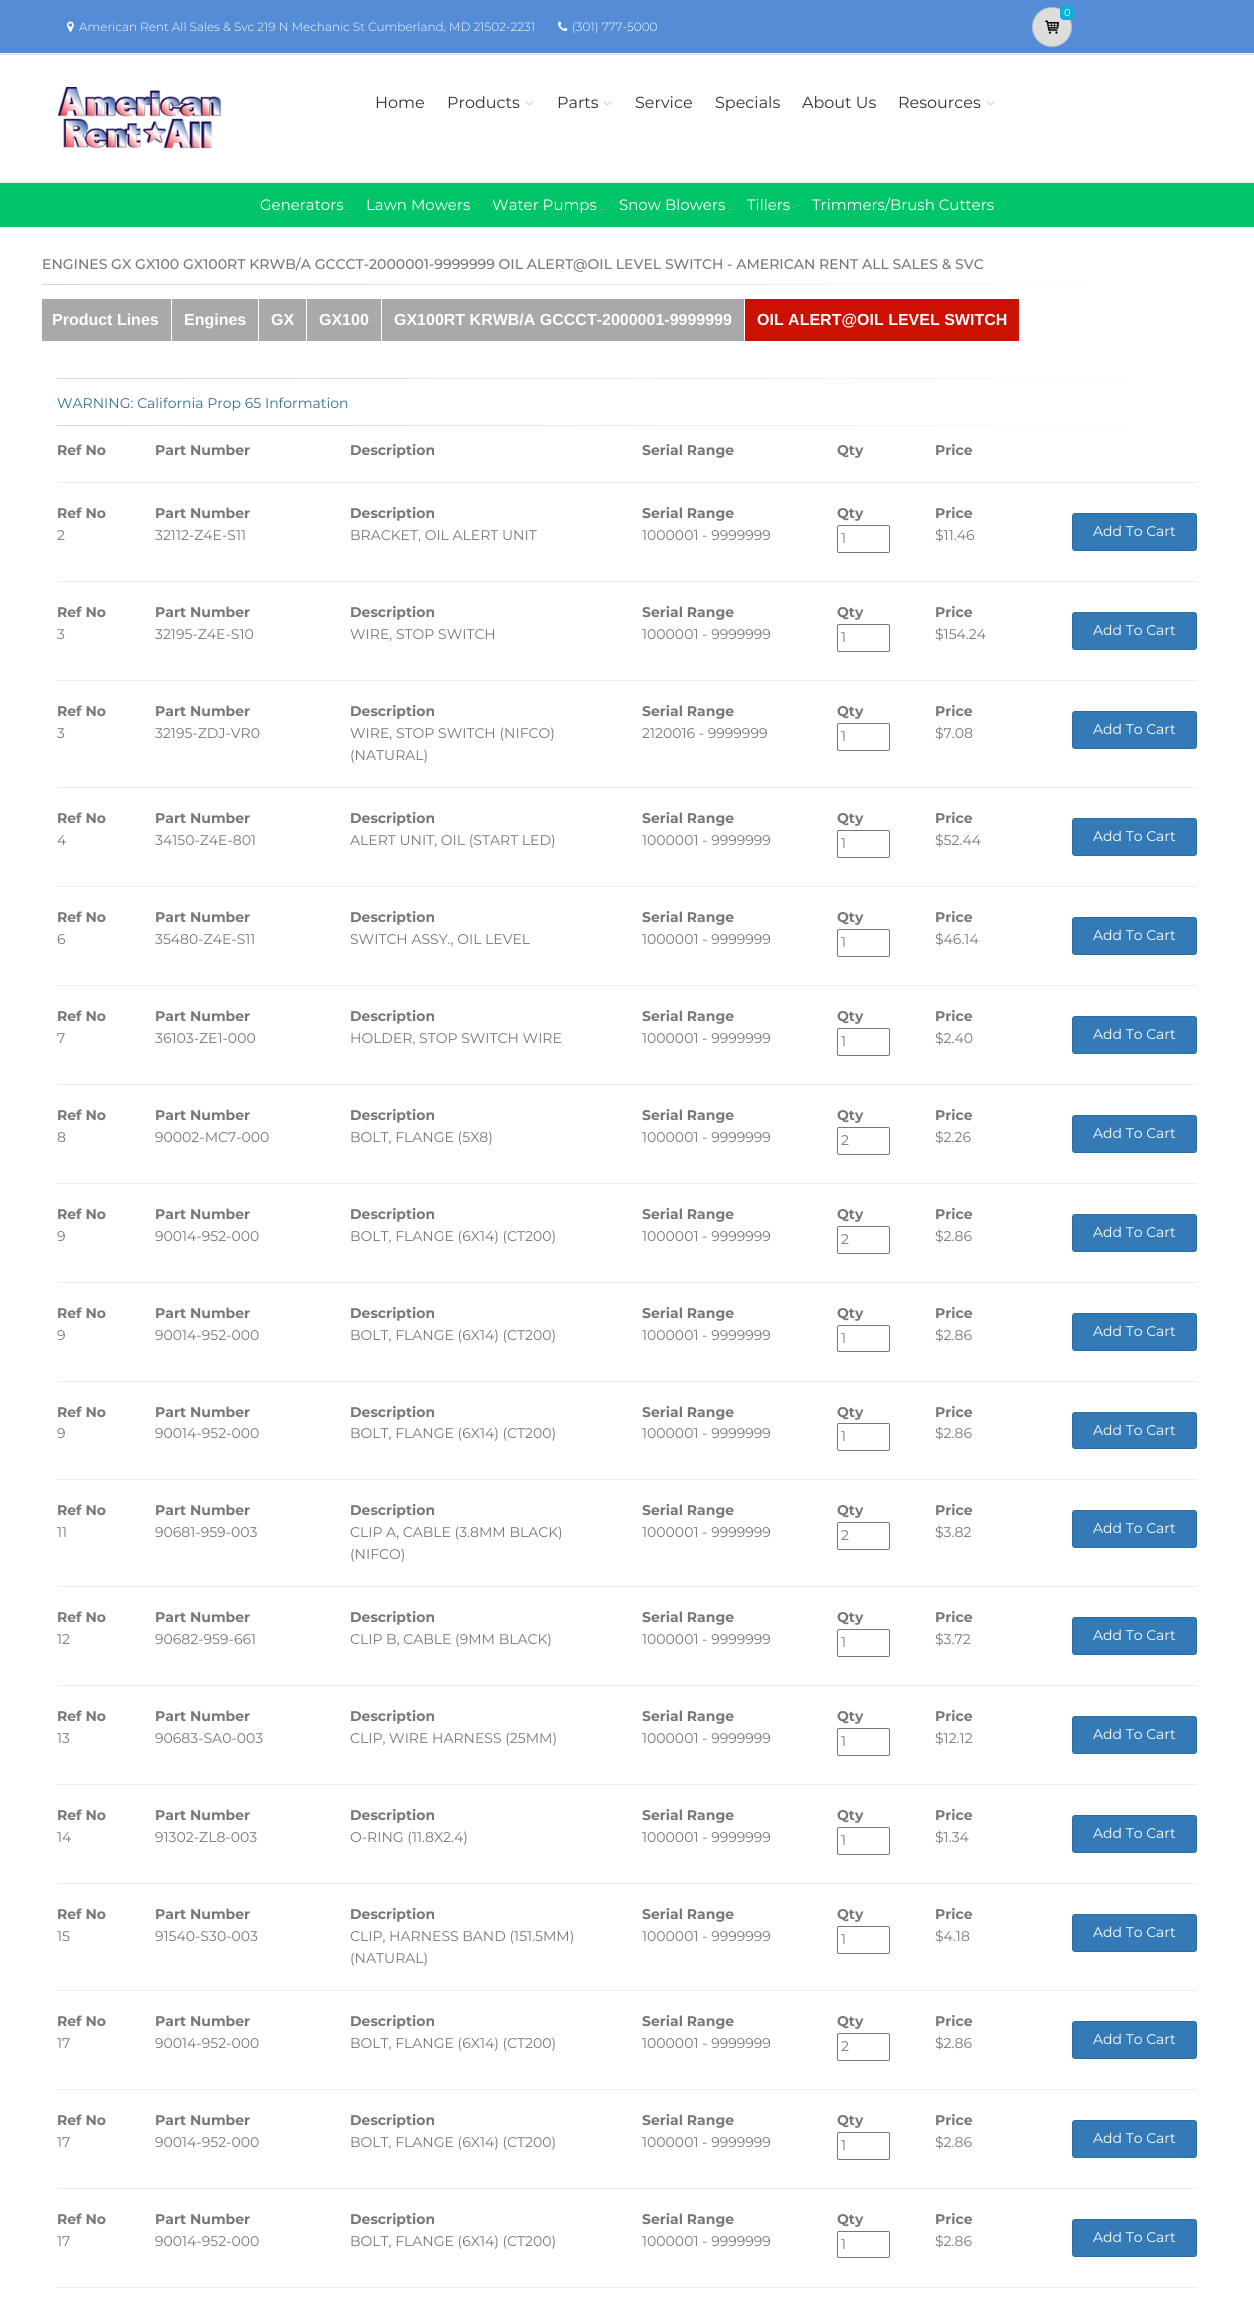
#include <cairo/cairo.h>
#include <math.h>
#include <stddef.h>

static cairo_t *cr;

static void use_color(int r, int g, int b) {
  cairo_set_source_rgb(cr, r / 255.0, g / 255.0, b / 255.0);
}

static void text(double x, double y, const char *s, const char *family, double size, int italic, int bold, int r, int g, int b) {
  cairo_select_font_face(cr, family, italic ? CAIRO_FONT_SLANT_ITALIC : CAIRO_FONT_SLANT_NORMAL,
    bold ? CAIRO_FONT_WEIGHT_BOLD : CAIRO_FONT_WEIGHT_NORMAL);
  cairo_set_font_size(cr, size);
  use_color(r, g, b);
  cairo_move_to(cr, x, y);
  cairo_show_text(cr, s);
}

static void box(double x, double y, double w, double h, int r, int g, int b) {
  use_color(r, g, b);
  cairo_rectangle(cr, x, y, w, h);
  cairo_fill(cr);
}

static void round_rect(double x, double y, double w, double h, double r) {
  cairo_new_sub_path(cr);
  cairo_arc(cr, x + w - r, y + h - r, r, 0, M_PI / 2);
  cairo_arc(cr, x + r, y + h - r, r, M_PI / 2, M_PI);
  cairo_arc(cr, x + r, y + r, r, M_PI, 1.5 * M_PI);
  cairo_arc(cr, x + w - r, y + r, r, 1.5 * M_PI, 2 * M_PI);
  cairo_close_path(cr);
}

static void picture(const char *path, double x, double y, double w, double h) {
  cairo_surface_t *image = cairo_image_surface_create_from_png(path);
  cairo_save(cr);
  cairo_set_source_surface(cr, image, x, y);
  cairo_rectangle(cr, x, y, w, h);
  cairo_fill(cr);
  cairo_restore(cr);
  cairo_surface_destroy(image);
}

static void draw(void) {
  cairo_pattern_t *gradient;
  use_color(255, 255, 255);
  cairo_paint(cr);
  box(0, 0, 1254, 53, 84, 141, 214);
  box(0, 53, 1254, 1, 239, 239, 239);
  use_color(221, 221, 221);
  cairo_arc(cr, 1052, 27, 20, 0, 2 * M_PI);
  cairo_fill(cr);
  cairo_arc(cr, 1052, 27, 19.5, 0, 2 * M_PI);
  cairo_set_source_rgba(cr, 0, 0, 0, 0.15);
  cairo_set_line_width(cr, 1);
  cairo_stroke(cr);
  use_color(9, 175, 223);
  round_rect(1060, 6, 14, 14, 4);
  cairo_fill(cr);
  picture("img_01.png", 1045, 20, 14, 14);
  picture("img_02.png", 67, 21, 7, 11);
  picture("img_03.png", 558, 21, 10, 10);
  box(0, 54, 1254, 1, 221, 221, 221);
  box(0, 181, 1254, 2, 241, 241, 241);
  picture("img_04.png", 57, 87, 165, 62);
  picture("img_05.png", 525, 101, 9, 5);
  picture("img_05.png", 603, 101, 9, 5);
  picture("img_05.png", 986, 101, 9, 5);
  box(0, 183, 1254, 44, 2, 197, 106);
  gradient = cairo_pattern_create_linear(42, 285, 1212, 284);
  cairo_pattern_add_color_stop_rgba(gradient, 0, 0.839, 0.839, 0.839, 1);
  cairo_pattern_add_color_stop_rgba(gradient, 1, 1, 1, 1, 1);
  cairo_set_source(cr, gradient);
  cairo_pattern_destroy(gradient);
  cairo_rectangle(cr, 42, 284, 1099, 1);
  cairo_fill(cr);
  box(42, 299, 129, 42, 169, 169, 169);
  box(172, 299, 86, 42, 169, 169, 169);
  box(259, 299, 47, 42, 169, 169, 169);
  box(307, 299, 74, 42, 169, 169, 169);
  box(382, 299, 362, 42, 169, 169, 169);
  box(745, 299, 274, 42, 204, 16, 1);
  gradient = cairo_pattern_create_linear(57, 379, 1197, 378);
  cairo_pattern_add_color_stop_rgba(gradient, 0, 0.839, 0.839, 0.839, 1);
  cairo_pattern_add_color_stop_rgba(gradient, 1, 1, 1, 1, 1);
  cairo_set_source(cr, gradient);
  cairo_pattern_destroy(gradient);
  cairo_rectangle(cr, 57, 378, 1071, 1);
  cairo_fill(cr);
  gradient = cairo_pattern_create_linear(57, 426, 1197, 425);
  cairo_pattern_add_color_stop_rgba(gradient, 0, 0.839, 0.839, 0.839, 1);
  cairo_pattern_add_color_stop_rgba(gradient, 1, 1, 1, 1, 1);
  cairo_set_source(cr, gradient);
  cairo_pattern_destroy(gradient);
  cairo_rectangle(cr, 57, 425, 1071, 1);
  cairo_fill(cr);
  box(57, 482, 1140, 1, 238, 238, 238);
  round_rect(837.5, 525.5, 52, 27, 1.5);
  use_color(118, 118, 118);
  cairo_stroke(cr);
  use_color(51, 122, 183);
  round_rect(1072.5, 513.5, 124, 37, 2.5);
  cairo_fill_preserve(cr);
  use_color(46, 109, 164);
  cairo_stroke(cr);
  box(57, 581, 1140, 1, 238, 238, 238);
  round_rect(837.5, 624.5, 52, 27, 1.5);
  use_color(118, 118, 118);
  cairo_stroke(cr);
  use_color(51, 122, 183);
  round_rect(1072.5, 612.5, 124, 37, 2.5);
  cairo_fill_preserve(cr);
  use_color(46, 109, 164);
  cairo_stroke(cr);
  box(57, 680, 1140, 1, 238, 238, 238);
  round_rect(837.5, 723.5, 52, 27, 1.5);
  use_color(118, 118, 118);
  cairo_stroke(cr);
  use_color(51, 122, 183);
  round_rect(1072.5, 711.5, 124, 37, 2.5);
  cairo_fill_preserve(cr);
  use_color(46, 109, 164);
  cairo_stroke(cr);
  box(57, 787, 1140, 1, 238, 238, 238);
  round_rect(837.5, 830.5, 52, 27, 1.5);
  use_color(118, 118, 118);
  cairo_stroke(cr);
  use_color(51, 122, 183);
  round_rect(1072.5, 818.5, 124, 37, 2.5);
  cairo_fill_preserve(cr);
  use_color(46, 109, 164);
  cairo_stroke(cr);
  box(57, 886, 1140, 1, 238, 238, 238);
  round_rect(837.5, 929.5, 52, 27, 1.5);
  use_color(118, 118, 118);
  cairo_stroke(cr);
  use_color(51, 122, 183);
  round_rect(1072.5, 917.5, 124, 37, 2.5);
  cairo_fill_preserve(cr);
  use_color(46, 109, 164);
  cairo_stroke(cr);
  box(57, 985, 1140, 1, 238, 238, 238);
  round_rect(837.5, 1028.5, 52, 27, 1.5);
  use_color(118, 118, 118);
  cairo_stroke(cr);
  use_color(51, 122, 183);
  round_rect(1072.5, 1016.5, 124, 37, 2.5);
  cairo_fill_preserve(cr);
  use_color(46, 109, 164);
  cairo_stroke(cr);
  box(57, 1084, 1140, 1, 238, 238, 238);
  round_rect(837.5, 1127.5, 52, 27, 1.5);
  use_color(118, 118, 118);
  cairo_stroke(cr);
  use_color(51, 122, 183);
  round_rect(1072.5, 1115.5, 124, 37, 2.5);
  cairo_fill_preserve(cr);
  use_color(46, 109, 164);
  cairo_stroke(cr);
  box(57, 1183, 1140, 1, 238, 238, 238);
  round_rect(837.5, 1226.5, 52, 27, 1.5);
  use_color(118, 118, 118);
  cairo_stroke(cr);
  use_color(51, 122, 183);
  round_rect(1072.5, 1214.5, 124, 37, 2.5);
  cairo_fill_preserve(cr);
  use_color(46, 109, 164);
  cairo_stroke(cr);
  box(57, 1282, 1140, 1, 238, 238, 238);
  round_rect(837.5, 1325.5, 52, 26, 1.5);
  use_color(118, 118, 118);
  cairo_stroke(cr);
  use_color(51, 122, 183);
  round_rect(1072.5, 1313.5, 124, 37, 2.5);
  cairo_fill_preserve(cr);
  use_color(46, 109, 164);
  cairo_stroke(cr);
  box(57, 1381, 1140, 1, 238, 238, 238);
  round_rect(837.5, 1423.5, 52, 27, 1.5);
  use_color(118, 118, 118);
  cairo_stroke(cr);
  use_color(51, 122, 183);
  round_rect(1072.5, 1412.5, 124, 36, 2.5);
  cairo_fill_preserve(cr);
  use_color(46, 109, 164);
  cairo_stroke(cr);
  box(57, 1479, 1140, 1, 238, 238, 238);
  round_rect(837.5, 1522.5, 52, 27, 1.5);
  use_color(118, 118, 118);
  cairo_stroke(cr);
  use_color(51, 122, 183);
  round_rect(1072.5, 1510.5, 124, 37, 2.5);
  cairo_fill_preserve(cr);
  use_color(46, 109, 164);
  cairo_stroke(cr);
  box(57, 1586, 1140, 1, 238, 238, 238);
  round_rect(837.5, 1629.5, 52, 27, 1.5);
  use_color(118, 118, 118);
  cairo_stroke(cr);
  use_color(51, 122, 183);
  round_rect(1072.5, 1617.5, 124, 37, 2.5);
  cairo_fill_preserve(cr);
  use_color(46, 109, 164);
  cairo_stroke(cr);
  box(57, 1685, 1140, 1, 238, 238, 238);
  round_rect(837.5, 1728.5, 52, 27, 1.5);
  use_color(118, 118, 118);
  cairo_stroke(cr);
  use_color(51, 122, 183);
  round_rect(1072.5, 1716.5, 124, 37, 2.5);
  cairo_fill_preserve(cr);
  use_color(46, 109, 164);
  cairo_stroke(cr);
  box(57, 1784, 1140, 1, 238, 238, 238);
  round_rect(837.5, 1827.5, 52, 27, 1.5);
  use_color(118, 118, 118);
  cairo_stroke(cr);
  use_color(51, 122, 183);
  round_rect(1072.5, 1815.5, 124, 37, 2.5);
  cairo_fill_preserve(cr);
  use_color(46, 109, 164);
  cairo_stroke(cr);
  box(57, 1883, 1140, 1, 238, 238, 238);
  round_rect(837.5, 1926.5, 52, 27, 1.5);
  use_color(118, 118, 118);
  cairo_stroke(cr);
  use_color(51, 122, 183);
  round_rect(1072.5, 1914.5, 124, 37, 2.5);
  cairo_fill_preserve(cr);
  use_color(46, 109, 164);
  cairo_stroke(cr);
  box(57, 1990, 1140, 1, 238, 238, 238);
  round_rect(837.5, 2033.5, 52, 27, 1.5);
  use_color(118, 118, 118);
  cairo_stroke(cr);
  use_color(51, 122, 183);
  round_rect(1072.5, 2021.5, 124, 37, 2.5);
  cairo_fill_preserve(cr);
  use_color(46, 109, 164);
  cairo_stroke(cr);
  box(57, 2089, 1140, 1, 238, 238, 238);
  round_rect(837.5, 2132.5, 52, 27, 1.5);
  use_color(118, 118, 118);
  cairo_stroke(cr);
  use_color(51, 122, 183);
  round_rect(1072.5, 2120.5, 124, 37, 2.5);
  cairo_fill_preserve(cr);
  use_color(46, 109, 164);
  cairo_stroke(cr);
  box(57, 2188, 1140, 1, 238, 238, 238);
  round_rect(837.5, 2231.5, 52, 26, 1.5);
  use_color(118, 118, 118);
  cairo_stroke(cr);
  use_color(51, 122, 183);
  round_rect(1072.5, 2219.5, 124, 37, 2.5);
  cairo_fill_preserve(cr);
  use_color(46, 109, 164);
  cairo_stroke(cr);
  box(57, 2287, 1140, 1, 238, 238, 238);
  text(1064, 16, "0", "Montserrat", 10, 0, 0, 255, 255, 255);
  text(79, 31, "American Rent All Sales & Svc 219 N Mechanic St Cumberland, MD 21502-2231", "Montserrat Light", 12, 0, 0, 255, 255, 255);
  text(572, 31, "(301) 777-5000", "Montserrat Light", 12, 0, 0, 255, 255, 255);
  text(375, 108, "Home", "Montserrat", 16, 0, 0, 51, 51, 51);
  text(447, 108, "Products", "Montserrat", 16, 0, 0, 51, 51, 51);
  text(557, 108, "Parts", "Montserrat", 16, 0, 0, 51, 51, 51);
  text(635, 108, "Service", "Montserrat", 16, 0, 0, 51, 51, 51);
  text(715, 108, "Specials", "Montserrat", 16, 0, 0, 51, 51, 51);
  text(802, 108, "About Us", "Montserrat", 16, 0, 0, 51, 51, 51);
  text(898, 108, "Resources", "Montserrat", 16, 0, 0, 51, 51, 51);
  text(260, 210, "Generators", "Montserrat", 15, 0, 0, 255, 255, 255);
  text(366, 210, "Lawn Mowers", "Montserrat", 15, 0, 0, 255, 255, 255);
  text(492, 210, "Water Pumps", "Montserrat", 15, 0, 0, 255, 255, 255);
  text(619, 210, "Snow Blowers", "Montserrat", 15, 0, 0, 255, 255, 255);
  text(747, 210, "Tillers", "Montserrat", 15, 0, 0, 255, 255, 255);
  text(812, 210, "Trimmers/Brush Cutters", "Montserrat", 15, 0, 0, 255, 255, 255);
  text(42, 269, "ENGINES GX GX100 GX100RT KRWB/A GCCCT-2000001-9999999 OIL ALERT@OIL LEVEL SWITCH - AMERICAN RENT ALL SALES & SVC", "Montserrat Medium", 14, 0, 0, 119, 119, 119);
  text(52, 325, "Product Lines", "Liberation Sans", 16, 0, 1, 255, 255, 255);
  text(184, 325, "Engines", "Liberation Sans", 16, 0, 1, 255, 255, 255);
  text(271, 325, "GX", "Liberation Sans", 16, 0, 1, 255, 255, 255);
  text(319, 325, "GX100", "Liberation Sans", 16, 0, 1, 255, 255, 255);
  text(394, 325, "GX100RT KRWB/A GCCCT-2000001-9999999", "Liberation Sans", 16, 0, 1, 255, 255, 255);
  text(757, 325, "OIL ALERT@OIL LEVEL SWITCH", "Liberation Sans", 16, 0, 1, 255, 255, 255);
  text(57, 408, "WARNING: California Prop 65 Information", "Montserrat", 14, 0, 0, 49, 112, 143);
  text(57, 455, "Ref No", "Montserrat", 14, 0, 1, 119, 119, 119);
  text(155, 455, "Part Number", "Montserrat", 14, 0, 1, 119, 119, 119);
  text(350, 455, "Description", "Montserrat", 14, 0, 1, 119, 119, 119);
  text(642, 455, "Serial Range", "Montserrat", 14, 0, 1, 119, 119, 119);
  text(837, 455, "Qty", "Montserrat", 14, 0, 1, 119, 119, 119);
  text(935, 455, "Price", "Montserrat", 14, 0, 1, 119, 119, 119);
  text(57, 518, "Ref No", "Montserrat", 14, 0, 1, 119, 119, 119);
  text(57, 540, "2", "Montserrat", 14, 0, 0, 119, 119, 119);
  text(155, 518, "Part Number", "Montserrat", 14, 0, 1, 119, 119, 119);
  text(155, 540, "32112-Z4E-S11", "Montserrat", 14, 0, 0, 119, 119, 119);
  text(350, 518, "Description", "Montserrat", 14, 0, 1, 119, 119, 119);
  text(350, 540, "BRACKET, OIL ALERT UNIT", "Montserrat", 14, 0, 0, 119, 119, 119);
  text(642, 518, "Serial Range", "Montserrat", 14, 0, 1, 119, 119, 119);
  text(642, 540, "1000001 - 9999999", "Montserrat", 14, 0, 0, 119, 119, 119);
  text(837, 518, "Qty", "Montserrat", 14, 0, 1, 119, 119, 119);
  text(841, 543, "1", "Montserrat", 14, 0, 0, 119, 119, 119);
  text(935, 518, "Price", "Montserrat", 14, 0, 1, 119, 119, 119);
  text(935, 540, "$11.46", "Montserrat", 14, 0, 0, 119, 119, 119);
  text(1093, 536, "Add To Cart", "Montserrat", 14, 0, 0, 255, 255, 255);
  text(57, 617, "Ref No", "Montserrat", 14, 0, 1, 119, 119, 119);
  text(57, 639, "3", "Montserrat", 14, 0, 0, 119, 119, 119);
  text(155, 617, "Part Number", "Montserrat", 14, 0, 1, 119, 119, 119);
  text(155, 639, "32195-Z4E-S10", "Montserrat", 14, 0, 0, 119, 119, 119);
  text(350, 617, "Description", "Montserrat", 14, 0, 1, 119, 119, 119);
  text(350, 639, "WIRE, STOP SWITCH", "Montserrat", 14, 0, 0, 119, 119, 119);
  text(642, 617, "Serial Range", "Montserrat", 14, 0, 1, 119, 119, 119);
  text(642, 639, "1000001 - 9999999", "Montserrat", 14, 0, 0, 119, 119, 119);
  text(837, 617, "Qty", "Montserrat", 14, 0, 1, 119, 119, 119);
  text(841, 642, "1", "Montserrat", 14, 0, 0, 119, 119, 119);
  text(935, 617, "Price", "Montserrat", 14, 0, 1, 119, 119, 119);
  text(935, 639, "$154.24", "Montserrat", 14, 0, 0, 119, 119, 119);
  text(1093, 635, "Add To Cart", "Montserrat", 14, 0, 0, 255, 255, 255);
  text(57, 716, "Ref No", "Montserrat", 14, 0, 1, 119, 119, 119);
  text(57, 738, "3", "Montserrat", 14, 0, 0, 119, 119, 119);
  text(155, 716, "Part Number", "Montserrat", 14, 0, 1, 119, 119, 119);
  text(155, 738, "32195-ZDJ-VR0", "Montserrat", 14, 0, 0, 119, 119, 119);
  text(350, 716, "Description", "Montserrat", 14, 0, 1, 119, 119, 119);
  text(350, 738, "WIRE, STOP SWITCH (NIFCO)", "Montserrat", 14, 0, 0, 119, 119, 119);
  text(350, 760, "(NATURAL)", "Montserrat", 14, 0, 0, 119, 119, 119);
  text(642, 716, "Serial Range", "Montserrat", 14, 0, 1, 119, 119, 119);
  text(642, 738, "2120016 - 9999999", "Montserrat", 14, 0, 0, 119, 119, 119);
  text(837, 716, "Qty", "Montserrat", 14, 0, 1, 119, 119, 119);
  text(841, 741, "1", "Montserrat", 14, 0, 0, 119, 119, 119);
  text(935, 716, "Price", "Montserrat", 14, 0, 1, 119, 119, 119);
  text(935, 738, "$7.08", "Montserrat", 14, 0, 0, 119, 119, 119);
  text(1093, 734, "Add To Cart", "Montserrat", 14, 0, 0, 255, 255, 255);
  text(57, 823, "Ref No", "Montserrat", 14, 0, 1, 119, 119, 119);
  text(57, 845, "4", "Montserrat", 14, 0, 0, 119, 119, 119);
  text(155, 823, "Part Number", "Montserrat", 14, 0, 1, 119, 119, 119);
  text(155, 845, "34150-Z4E-801", "Montserrat", 14, 0, 0, 119, 119, 119);
  text(350, 823, "Description", "Montserrat", 14, 0, 1, 119, 119, 119);
  text(350, 845, "ALERT UNIT, OIL (START LED)", "Montserrat", 14, 0, 0, 119, 119, 119);
  text(642, 823, "Serial Range", "Montserrat", 14, 0, 1, 119, 119, 119);
  text(642, 845, "1000001 - 9999999", "Montserrat", 14, 0, 0, 119, 119, 119);
  text(837, 823, "Qty", "Montserrat", 14, 0, 1, 119, 119, 119);
  text(841, 848, "1", "Montserrat", 14, 0, 0, 119, 119, 119);
  text(935, 823, "Price", "Montserrat", 14, 0, 1, 119, 119, 119);
  text(935, 845, "$52.44", "Montserrat", 14, 0, 0, 119, 119, 119);
  text(1093, 841, "Add To Cart", "Montserrat", 14, 0, 0, 255, 255, 255);
  text(57, 922, "Ref No", "Montserrat", 14, 0, 1, 119, 119, 119);
  text(57, 944, "6", "Montserrat", 14, 0, 0, 119, 119, 119);
  text(155, 922, "Part Number", "Montserrat", 14, 0, 1, 119, 119, 119);
  text(155, 944, "35480-Z4E-S11", "Montserrat", 14, 0, 0, 119, 119, 119);
  text(350, 922, "Description", "Montserrat", 14, 0, 1, 119, 119, 119);
  text(350, 944, "SWITCH ASSY., OIL LEVEL", "Montserrat", 14, 0, 0, 119, 119, 119);
  text(642, 922, "Serial Range", "Montserrat", 14, 0, 1, 119, 119, 119);
  text(642, 944, "1000001 - 9999999", "Montserrat", 14, 0, 0, 119, 119, 119);
  text(837, 922, "Qty", "Montserrat", 14, 0, 1, 119, 119, 119);
  text(841, 947, "1", "Montserrat", 14, 0, 0, 119, 119, 119);
  text(935, 922, "Price", "Montserrat", 14, 0, 1, 119, 119, 119);
  text(935, 944, "$46.14", "Montserrat", 14, 0, 0, 119, 119, 119);
  text(1093, 940, "Add To Cart", "Montserrat", 14, 0, 0, 255, 255, 255);
  text(57, 1021, "Ref No", "Montserrat", 14, 0, 1, 119, 119, 119);
  text(57, 1043, "7", "Montserrat", 14, 0, 0, 119, 119, 119);
  text(155, 1021, "Part Number", "Montserrat", 14, 0, 1, 119, 119, 119);
  text(155, 1043, "36103-ZE1-000", "Montserrat", 14, 0, 0, 119, 119, 119);
  text(350, 1021, "Description", "Montserrat", 14, 0, 1, 119, 119, 119);
  text(350, 1043, "HOLDER, STOP SWITCH WIRE", "Montserrat", 14, 0, 0, 119, 119, 119);
  text(642, 1021, "Serial Range", "Montserrat", 14, 0, 1, 119, 119, 119);
  text(642, 1043, "1000001 - 9999999", "Montserrat", 14, 0, 0, 119, 119, 119);
  text(837, 1021, "Qty", "Montserrat", 14, 0, 1, 119, 119, 119);
  text(841, 1046, "1", "Montserrat", 14, 0, 0, 119, 119, 119);
  text(935, 1021, "Price", "Montserrat", 14, 0, 1, 119, 119, 119);
  text(935, 1043, "$2.40", "Montserrat", 14, 0, 0, 119, 119, 119);
  text(1093, 1039, "Add To Cart", "Montserrat", 14, 0, 0, 255, 255, 255);
  text(57, 1120, "Ref No", "Montserrat", 14, 0, 1, 119, 119, 119);
  text(57, 1142, "8", "Montserrat", 14, 0, 0, 119, 119, 119);
  text(155, 1120, "Part Number", "Montserrat", 14, 0, 1, 119, 119, 119);
  text(155, 1142, "90002-MC7-000", "Montserrat", 14, 0, 0, 119, 119, 119);
  text(350, 1120, "Description", "Montserrat", 14, 0, 1, 119, 119, 119);
  text(350, 1142, "BOLT, FLANGE (5X8)", "Montserrat", 14, 0, 0, 119, 119, 119);
  text(642, 1120, "Serial Range", "Montserrat", 14, 0, 1, 119, 119, 119);
  text(642, 1142, "1000001 - 9999999", "Montserrat", 14, 0, 0, 119, 119, 119);
  text(837, 1120, "Qty", "Montserrat", 14, 0, 1, 119, 119, 119);
  text(841, 1145, "2", "Montserrat", 14, 0, 0, 119, 119, 119);
  text(935, 1120, "Price", "Montserrat", 14, 0, 1, 119, 119, 119);
  text(935, 1142, "$2.26", "Montserrat", 14, 0, 0, 119, 119, 119);
  text(1093, 1138, "Add To Cart", "Montserrat", 14, 0, 0, 255, 255, 255);
  text(57, 1219, "Ref No", "Montserrat", 14, 0, 1, 119, 119, 119);
  text(57, 1241, "9", "Montserrat", 14, 0, 0, 119, 119, 119);
  text(155, 1219, "Part Number", "Montserrat", 14, 0, 1, 119, 119, 119);
  text(155, 1241, "90014-952-000", "Montserrat", 14, 0, 0, 119, 119, 119);
  text(350, 1219, "Description", "Montserrat", 14, 0, 1, 119, 119, 119);
  text(350, 1241, "BOLT, FLANGE (6X14) (CT200)", "Montserrat", 14, 0, 0, 119, 119, 119);
  text(642, 1219, "Serial Range", "Montserrat", 14, 0, 1, 119, 119, 119);
  text(642, 1241, "1000001 - 9999999", "Montserrat", 14, 0, 0, 119, 119, 119);
  text(837, 1219, "Qty", "Montserrat", 14, 0, 1, 119, 119, 119);
  text(841, 1244, "2", "Montserrat", 14, 0, 0, 119, 119, 119);
  text(935, 1219, "Price", "Montserrat", 14, 0, 1, 119, 119, 119);
  text(935, 1241, "$2.86", "Montserrat", 14, 0, 0, 119, 119, 119);
  text(1093, 1237, "Add To Cart", "Montserrat", 14, 0, 0, 255, 255, 255);
  text(57, 1318, "Ref No", "Montserrat", 14, 0, 1, 119, 119, 119);
  text(57, 1340, "9", "Montserrat", 14, 0, 0, 119, 119, 119);
  text(155, 1318, "Part Number", "Montserrat", 14, 0, 1, 119, 119, 119);
  text(155, 1340, "90014-952-000", "Montserrat", 14, 0, 0, 119, 119, 119);
  text(350, 1318, "Description", "Montserrat", 14, 0, 1, 119, 119, 119);
  text(350, 1340, "BOLT, FLANGE (6X14) (CT200)", "Montserrat", 14, 0, 0, 119, 119, 119);
  text(642, 1318, "Serial Range", "Montserrat", 14, 0, 1, 119, 119, 119);
  text(642, 1340, "1000001 - 9999999", "Montserrat", 14, 0, 0, 119, 119, 119);
  text(837, 1318, "Qty", "Montserrat", 14, 0, 1, 119, 119, 119);
  text(841, 1343, "1", "Montserrat", 14, 0, 0, 119, 119, 119);
  text(935, 1318, "Price", "Montserrat", 14, 0, 1, 119, 119, 119);
  text(935, 1340, "$2.86", "Montserrat", 14, 0, 0, 119, 119, 119);
  text(1093, 1336, "Add To Cart", "Montserrat", 14, 0, 0, 255, 255, 255);
  text(57, 1417, "Ref No", "Montserrat", 14, 0, 1, 119, 119, 119);
  text(57, 1438, "9", "Montserrat", 14, 0, 0, 119, 119, 119);
  text(155, 1417, "Part Number", "Montserrat", 14, 0, 1, 119, 119, 119);
  text(155, 1438, "90014-952-000", "Montserrat", 14, 0, 0, 119, 119, 119);
  text(350, 1417, "Description", "Montserrat", 14, 0, 1, 119, 119, 119);
  text(350, 1438, "BOLT, FLANGE (6X14) (CT200)", "Montserrat", 14, 0, 0, 119, 119, 119);
  text(642, 1417, "Serial Range", "Montserrat", 14, 0, 1, 119, 119, 119);
  text(642, 1438, "1000001 - 9999999", "Montserrat", 14, 0, 0, 119, 119, 119);
  text(837, 1417, "Qty", "Montserrat", 14, 0, 1, 119, 119, 119);
  text(841, 1441, "1", "Montserrat", 14, 0, 0, 119, 119, 119);
  text(935, 1417, "Price", "Montserrat", 14, 0, 1, 119, 119, 119);
  text(935, 1438, "$2.86", "Montserrat", 14, 0, 0, 119, 119, 119);
  text(1093, 1435, "Add To Cart", "Montserrat", 14, 0, 0, 255, 255, 255);
  text(57, 1515, "Ref No", "Montserrat", 14, 0, 1, 119, 119, 119);
  text(57, 1537, "11", "Montserrat", 14, 0, 0, 119, 119, 119);
  text(155, 1515, "Part Number", "Montserrat", 14, 0, 1, 119, 119, 119);
  text(155, 1537, "90681-959-003", "Montserrat", 14, 0, 0, 119, 119, 119);
  text(350, 1515, "Description", "Montserrat", 14, 0, 1, 119, 119, 119);
  text(350, 1537, "CLIP A, CABLE (3.8MM BLACK)", "Montserrat", 14, 0, 0, 119, 119, 119);
  text(350, 1559, "(NIFCO)", "Montserrat", 14, 0, 0, 119, 119, 119);
  text(642, 1515, "Serial Range", "Montserrat", 14, 0, 1, 119, 119, 119);
  text(642, 1537, "1000001 - 9999999", "Montserrat", 14, 0, 0, 119, 119, 119);
  text(837, 1515, "Qty", "Montserrat", 14, 0, 1, 119, 119, 119);
  text(841, 1540, "2", "Montserrat", 14, 0, 0, 119, 119, 119);
  text(935, 1515, "Price", "Montserrat", 14, 0, 1, 119, 119, 119);
  text(935, 1537, "$3.82", "Montserrat", 14, 0, 0, 119, 119, 119);
  text(1093, 1533, "Add To Cart", "Montserrat", 14, 0, 0, 255, 255, 255);
  text(57, 1622, "Ref No", "Montserrat", 14, 0, 1, 119, 119, 119);
  text(57, 1644, "12", "Montserrat", 14, 0, 0, 119, 119, 119);
  text(155, 1622, "Part Number", "Montserrat", 14, 0, 1, 119, 119, 119);
  text(155, 1644, "90682-959-661", "Montserrat", 14, 0, 0, 119, 119, 119);
  text(350, 1622, "Description", "Montserrat", 14, 0, 1, 119, 119, 119);
  text(350, 1644, "CLIP B, CABLE (9MM BLACK)", "Montserrat", 14, 0, 0, 119, 119, 119);
  text(642, 1622, "Serial Range", "Montserrat", 14, 0, 1, 119, 119, 119);
  text(642, 1644, "1000001 - 9999999", "Montserrat", 14, 0, 0, 119, 119, 119);
  text(837, 1622, "Qty", "Montserrat", 14, 0, 1, 119, 119, 119);
  text(841, 1647, "1", "Montserrat", 14, 0, 0, 119, 119, 119);
  text(935, 1622, "Price", "Montserrat", 14, 0, 1, 119, 119, 119);
  text(935, 1644, "$3.72", "Montserrat", 14, 0, 0, 119, 119, 119);
  text(1093, 1640, "Add To Cart", "Montserrat", 14, 0, 0, 255, 255, 255);
  text(57, 1721, "Ref No", "Montserrat", 14, 0, 1, 119, 119, 119);
  text(57, 1743, "13", "Montserrat", 14, 0, 0, 119, 119, 119);
  text(155, 1721, "Part Number", "Montserrat", 14, 0, 1, 119, 119, 119);
  text(155, 1743, "90683-SA0-003", "Montserrat", 14, 0, 0, 119, 119, 119);
  text(350, 1721, "Description", "Montserrat", 14, 0, 1, 119, 119, 119);
  text(350, 1743, "CLIP, WIRE HARNESS (25MM)", "Montserrat", 14, 0, 0, 119, 119, 119);
  text(642, 1721, "Serial Range", "Montserrat", 14, 0, 1, 119, 119, 119);
  text(642, 1743, "1000001 - 9999999", "Montserrat", 14, 0, 0, 119, 119, 119);
  text(837, 1721, "Qty", "Montserrat", 14, 0, 1, 119, 119, 119);
  text(841, 1746, "1", "Montserrat", 14, 0, 0, 119, 119, 119);
  text(935, 1721, "Price", "Montserrat", 14, 0, 1, 119, 119, 119);
  text(935, 1743, "$12.12", "Montserrat", 14, 0, 0, 119, 119, 119);
  text(1093, 1739, "Add To Cart", "Montserrat", 14, 0, 0, 255, 255, 255);
  text(57, 1820, "Ref No", "Montserrat", 14, 0, 1, 119, 119, 119);
  text(57, 1842, "14", "Montserrat", 14, 0, 0, 119, 119, 119);
  text(155, 1820, "Part Number", "Montserrat", 14, 0, 1, 119, 119, 119);
  text(155, 1842, "91302-ZL8-003", "Montserrat", 14, 0, 0, 119, 119, 119);
  text(350, 1820, "Description", "Montserrat", 14, 0, 1, 119, 119, 119);
  text(350, 1842, "O-RING (11.8X2.4)", "Montserrat", 14, 0, 0, 119, 119, 119);
  text(642, 1820, "Serial Range", "Montserrat", 14, 0, 1, 119, 119, 119);
  text(642, 1842, "1000001 - 9999999", "Montserrat", 14, 0, 0, 119, 119, 119);
  text(837, 1820, "Qty", "Montserrat", 14, 0, 1, 119, 119, 119);
  text(841, 1845, "1", "Montserrat", 14, 0, 0, 119, 119, 119);
  text(935, 1820, "Price", "Montserrat", 14, 0, 1, 119, 119, 119);
  text(935, 1842, "$1.34", "Montserrat", 14, 0, 0, 119, 119, 119);
  text(1093, 1838, "Add To Cart", "Montserrat", 14, 0, 0, 255, 255, 255);
  text(57, 1919, "Ref No", "Montserrat", 14, 0, 1, 119, 119, 119);
  text(57, 1941, "15", "Montserrat", 14, 0, 0, 119, 119, 119);
  text(155, 1919, "Part Number", "Montserrat", 14, 0, 1, 119, 119, 119);
  text(155, 1941, "91540-S30-003", "Montserrat", 14, 0, 0, 119, 119, 119);
  text(350, 1919, "Description", "Montserrat", 14, 0, 1, 119, 119, 119);
  text(350, 1941, "CLIP, HARNESS BAND (151.5MM)", "Montserrat", 14, 0, 0, 119, 119, 119);
  text(350, 1963, "(NATURAL)", "Montserrat", 14, 0, 0, 119, 119, 119);
  text(642, 1919, "Serial Range", "Montserrat", 14, 0, 1, 119, 119, 119);
  text(642, 1941, "1000001 - 9999999", "Montserrat", 14, 0, 0, 119, 119, 119);
  text(837, 1919, "Qty", "Montserrat", 14, 0, 1, 119, 119, 119);
  text(841, 1944, "1", "Montserrat", 14, 0, 0, 119, 119, 119);
  text(935, 1919, "Price", "Montserrat", 14, 0, 1, 119, 119, 119);
  text(935, 1941, "$4.18", "Montserrat", 14, 0, 0, 119, 119, 119);
  text(1093, 1937, "Add To Cart", "Montserrat", 14, 0, 0, 255, 255, 255);
  text(57, 2026, "Ref No", "Montserrat", 14, 0, 1, 119, 119, 119);
  text(57, 2048, "17", "Montserrat", 14, 0, 0, 119, 119, 119);
  text(155, 2026, "Part Number", "Montserrat", 14, 0, 1, 119, 119, 119);
  text(155, 2048, "90014-952-000", "Montserrat", 14, 0, 0, 119, 119, 119);
  text(350, 2026, "Description", "Montserrat", 14, 0, 1, 119, 119, 119);
  text(350, 2048, "BOLT, FLANGE (6X14) (CT200)", "Montserrat", 14, 0, 0, 119, 119, 119);
  text(642, 2026, "Serial Range", "Montserrat", 14, 0, 1, 119, 119, 119);
  text(642, 2048, "1000001 - 9999999", "Montserrat", 14, 0, 0, 119, 119, 119);
  text(837, 2026, "Qty", "Montserrat", 14, 0, 1, 119, 119, 119);
  text(841, 2051, "2", "Montserrat", 14, 0, 0, 119, 119, 119);
  text(935, 2026, "Price", "Montserrat", 14, 0, 1, 119, 119, 119);
  text(935, 2048, "$2.86", "Montserrat", 14, 0, 0, 119, 119, 119);
  text(1093, 2044, "Add To Cart", "Montserrat", 14, 0, 0, 255, 255, 255);
  text(57, 2125, "Ref No", "Montserrat", 14, 0, 1, 119, 119, 119);
  text(57, 2147, "17", "Montserrat", 14, 0, 0, 119, 119, 119);
  text(155, 2125, "Part Number", "Montserrat", 14, 0, 1, 119, 119, 119);
  text(155, 2147, "90014-952-000", "Montserrat", 14, 0, 0, 119, 119, 119);
  text(350, 2125, "Description", "Montserrat", 14, 0, 1, 119, 119, 119);
  text(350, 2147, "BOLT, FLANGE (6X14) (CT200)", "Montserrat", 14, 0, 0, 119, 119, 119);
  text(642, 2125, "Serial Range", "Montserrat", 14, 0, 1, 119, 119, 119);
  text(642, 2147, "1000001 - 9999999", "Montserrat", 14, 0, 0, 119, 119, 119);
  text(837, 2125, "Qty", "Montserrat", 14, 0, 1, 119, 119, 119);
  text(841, 2150, "1", "Montserrat", 14, 0, 0, 119, 119, 119);
  text(935, 2125, "Price", "Montserrat", 14, 0, 1, 119, 119, 119);
  text(935, 2147, "$2.86", "Montserrat", 14, 0, 0, 119, 119, 119);
  text(1093, 2143, "Add To Cart", "Montserrat", 14, 0, 0, 255, 255, 255);
  text(57, 2224, "Ref No", "Montserrat", 14, 0, 1, 119, 119, 119);
  text(57, 2246, "17", "Montserrat", 14, 0, 0, 119, 119, 119);
  text(155, 2224, "Part Number", "Montserrat", 14, 0, 1, 119, 119, 119);
  text(155, 2246, "90014-952-000", "Montserrat", 14, 0, 0, 119, 119, 119);
  text(350, 2224, "Description", "Montserrat", 14, 0, 1, 119, 119, 119);
  text(350, 2246, "BOLT, FLANGE (6X14) (CT200)", "Montserrat", 14, 0, 0, 119, 119, 119);
  text(642, 2224, "Serial Range", "Montserrat", 14, 0, 1, 119, 119, 119);
  text(642, 2246, "1000001 - 9999999", "Montserrat", 14, 0, 0, 119, 119, 119);
  text(837, 2224, "Qty", "Montserrat", 14, 0, 1, 119, 119, 119);
  text(841, 2249, "1", "Montserrat", 14, 0, 0, 119, 119, 119);
  text(935, 2224, "Price", "Montserrat", 14, 0, 1, 119, 119, 119);
  text(935, 2246, "$2.86", "Montserrat", 14, 0, 0, 119, 119, 119);
  text(1093, 2242, "Add To Cart", "Montserrat", 14, 0, 0, 255, 255, 255);
}

int main(void) {
  cairo_surface_t *surface = cairo_image_surface_create(CAIRO_FORMAT_RGB24, 1254, 2298);
  cr = cairo_create(surface);
  cairo_font_options_t *options = cairo_font_options_create();
  cairo_font_options_set_hint_metrics(options, CAIRO_HINT_METRICS_OFF);
  cairo_font_options_set_hint_style(options, CAIRO_HINT_STYLE_NONE);
  cairo_set_font_options(cr, options);
  cairo_set_miter_limit(cr, 4);
  draw();
  cairo_surface_write_to_png(surface, "out.png");
  cairo_font_options_destroy(options);
  cairo_destroy(cr);
  cairo_surface_destroy(surface);
  return 0;
}
